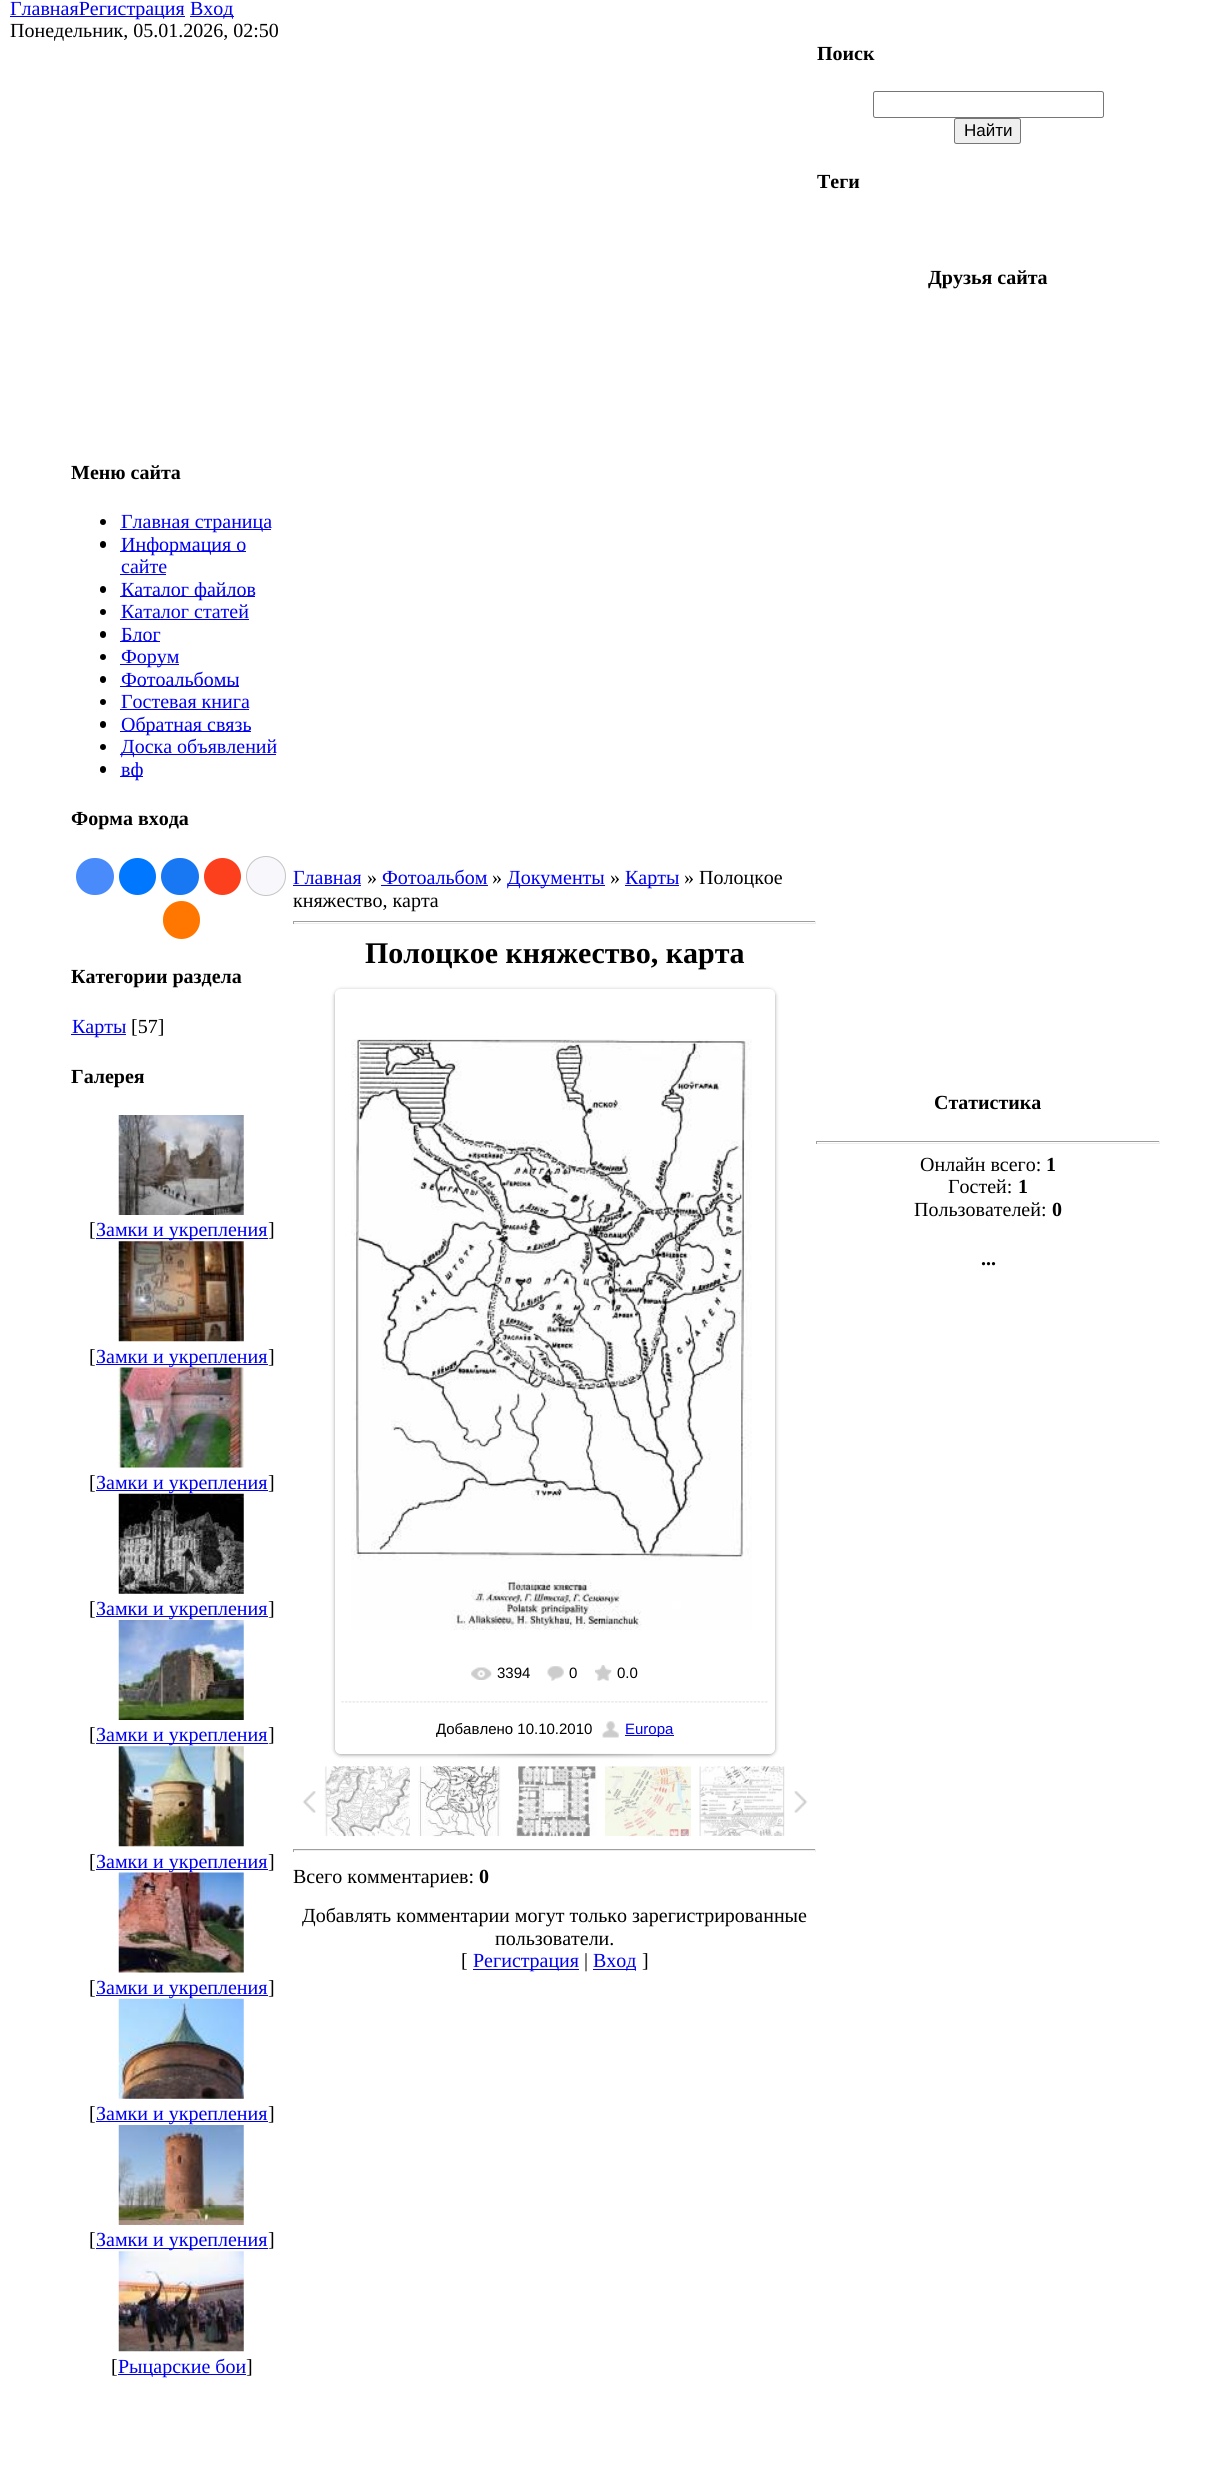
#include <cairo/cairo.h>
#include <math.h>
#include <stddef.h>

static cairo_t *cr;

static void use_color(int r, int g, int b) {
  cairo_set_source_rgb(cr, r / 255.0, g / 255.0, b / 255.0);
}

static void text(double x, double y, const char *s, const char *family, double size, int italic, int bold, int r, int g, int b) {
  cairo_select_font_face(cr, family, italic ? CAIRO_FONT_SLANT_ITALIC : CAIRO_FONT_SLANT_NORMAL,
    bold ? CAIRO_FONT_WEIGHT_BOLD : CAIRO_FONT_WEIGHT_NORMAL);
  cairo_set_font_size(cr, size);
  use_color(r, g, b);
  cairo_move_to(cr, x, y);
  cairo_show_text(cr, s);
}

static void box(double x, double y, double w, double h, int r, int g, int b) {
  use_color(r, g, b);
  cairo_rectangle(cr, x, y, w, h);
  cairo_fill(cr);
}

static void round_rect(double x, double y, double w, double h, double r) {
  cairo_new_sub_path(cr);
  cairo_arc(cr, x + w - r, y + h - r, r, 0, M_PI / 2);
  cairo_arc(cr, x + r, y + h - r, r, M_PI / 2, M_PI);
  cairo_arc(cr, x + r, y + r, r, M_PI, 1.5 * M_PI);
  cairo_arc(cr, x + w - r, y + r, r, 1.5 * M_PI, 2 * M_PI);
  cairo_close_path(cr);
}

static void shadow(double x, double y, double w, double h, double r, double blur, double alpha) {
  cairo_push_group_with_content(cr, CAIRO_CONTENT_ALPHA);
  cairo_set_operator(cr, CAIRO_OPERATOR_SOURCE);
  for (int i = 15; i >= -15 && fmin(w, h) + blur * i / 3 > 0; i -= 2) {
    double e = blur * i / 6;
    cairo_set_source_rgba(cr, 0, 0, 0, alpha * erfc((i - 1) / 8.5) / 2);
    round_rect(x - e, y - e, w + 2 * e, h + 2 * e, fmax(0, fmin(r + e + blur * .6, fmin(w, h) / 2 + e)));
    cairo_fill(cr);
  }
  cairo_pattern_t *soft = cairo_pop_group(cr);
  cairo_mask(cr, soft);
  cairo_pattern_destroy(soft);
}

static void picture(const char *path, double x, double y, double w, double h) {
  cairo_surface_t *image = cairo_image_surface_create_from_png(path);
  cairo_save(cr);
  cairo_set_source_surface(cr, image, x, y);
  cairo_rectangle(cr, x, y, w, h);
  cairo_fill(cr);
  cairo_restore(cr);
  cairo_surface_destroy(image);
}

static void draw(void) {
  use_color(255, 255, 255);
  cairo_paint(cr);
  box(10, 16, 175, 1, 0, 0, 238);
  box(190, 16, 44, 1, 0, 0, 238);
  use_color(0, 0, 0);
  cairo_arc(cr, 103, 522, 3, 0, 2 * M_PI);
  cairo_fill(cr);
  box(120, 529, 151, 1, 0, 0, 238);
  use_color(0, 0, 0);
  round_rect(100, 541, 6, 7, 3);
  cairo_fill(cr);
  box(120, 551, 126, 1, 0, 0, 238);
  box(120, 574, 46, 1, 0, 0, 238);
  use_color(0, 0, 0);
  round_rect(100, 586, 6, 7, 3);
  cairo_fill(cr);
  box(120, 596, 135, 1, 0, 0, 238);
  use_color(0, 0, 0);
  cairo_arc(cr, 103, 612, 3, 0, 2 * M_PI);
  cairo_fill(cr);
  box(120, 619, 129, 1, 0, 0, 238);
  use_color(0, 0, 0);
  round_rect(100, 631, 6, 7, 3);
  cairo_fill(cr);
  box(120, 641, 40, 1, 0, 0, 238);
  use_color(0, 0, 0);
  cairo_arc(cr, 103, 657, 3, 0, 2 * M_PI);
  cairo_fill(cr);
  box(120, 664, 59, 1, 0, 0, 238);
  use_color(0, 0, 0);
  round_rect(100, 676, 6, 7, 3);
  cairo_fill(cr);
  box(120, 686, 119, 1, 0, 0, 238);
  use_color(0, 0, 0);
  cairo_arc(cr, 103, 702, 3, 0, 2 * M_PI);
  cairo_fill(cr);
  box(120, 709, 129, 1, 0, 0, 238);
  use_color(0, 0, 0);
  round_rect(100, 721, 6, 7, 3);
  cairo_fill(cr);
  box(120, 731, 131, 1, 0, 0, 238);
  use_color(0, 0, 0);
  cairo_arc(cr, 103, 747, 3, 0, 2 * M_PI);
  cairo_fill(cr);
  box(120, 754, 156, 1, 0, 0, 238);
  use_color(0, 0, 0);
  round_rect(100, 766, 6, 7, 3);
  cairo_fill(cr);
  box(120, 776, 23, 1, 0, 0, 238);
  use_color(73, 139, 250);
  round_rect(76, 858, 38, 37, 18.5);
  cairo_fill(cr);
  use_color(0, 119, 255);
  cairo_arc(cr, 137.5, 876.5, 18.5, 0, 2 * M_PI);
  cairo_fill(cr);
  use_color(24, 119, 242);
  round_rect(161, 858, 38, 37, 18.5);
  cairo_fill(cr);
  use_color(252, 63, 29);
  cairo_arc(cr, 222.5, 876.5, 18.5, 0, 2 * M_PI);
  cairo_fill(cr);
  use_color(248, 248, 252);
  cairo_arc(cr, 266, 876, 19.5, 0, 2 * M_PI);
  cairo_fill_preserve(cr);
  use_color(196, 196, 196);
  cairo_set_line_width(cr, 1);
  cairo_stroke(cr);
  use_color(255, 119, 0);
  round_rect(163, 901, 37, 38, 18.5);
  cairo_fill(cr);
  box(71, 1034, 55, 1, 0, 0, 238);
  picture("img_01.png", 118, 1115, 126, 100);
  box(96, 1238, 172, 1, 0, 0, 238);
  picture("img_02.png", 118, 1241, 126, 101);
  box(96, 1364, 172, 1, 0, 0, 238);
  box(96, 1490, 172, 1, 0, 0, 238);
  box(96, 1616, 172, 1, 0, 0, 238);
  picture("img_05.png", 118, 1620, 126, 100);
  box(96, 1743, 172, 1, 0, 0, 238);
  picture("img_06.png", 118, 1746, 126, 101);
  box(96, 1869, 172, 1, 0, 0, 238);
  box(96, 1995, 172, 1, 0, 0, 238);
  box(96, 2121, 172, 1, 0, 0, 238);
  picture("img_09.png", 118, 2125, 126, 100);
  box(96, 2248, 172, 1, 0, 0, 238);
  picture("img_10.png", 118, 2251, 126, 101);
  box(118, 2374, 128, 1, 0, 0, 238);
  box(293, 885, 68, 1, 0, 0, 238);
  box(381, 885, 107, 1, 0, 0, 238);
  box(508, 885, 97, 1, 0, 0, 238);
  box(625, 885, 54, 1, 0, 0, 238);
  box(293, 921, 523, 1, 159, 159, 159);
  box(815, 921, 1, 3, 238, 238, 238);
  box(293, 923, 523, 1, 238, 238, 238);
  box(293, 921, 1, 3, 159, 159, 159);
  cairo_save(cr);
  cairo_set_fill_rule(cr, CAIRO_FILL_RULE_EVEN_ODD);
  cairo_new_path(cr);
  cairo_move_to(cr, 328, 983);
  cairo_line_to(cr, 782, 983);
  cairo_line_to(cr, 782, 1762);
  cairo_line_to(cr, 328, 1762);
  cairo_close_path(cr);
  cairo_move_to(cr, 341, 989);
  cairo_line_to(cr, 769, 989);
  cairo_curve_to(cr, 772.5, 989, 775, 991.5, 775, 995);
  cairo_line_to(cr, 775, 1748);
  cairo_curve_to(cr, 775, 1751.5, 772.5, 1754, 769, 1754);
  cairo_line_to(cr, 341, 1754);
  cairo_curve_to(cr, 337.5, 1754, 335, 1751.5, 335, 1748);
  cairo_line_to(cr, 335, 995);
  cairo_curve_to(cr, 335, 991.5, 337.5, 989, 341, 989);
  cairo_close_path(cr);
  cairo_clip(cr);
  use_color(0, 0, 0);
  shadow(335, 990, 440, 765, 6, 2, 0.37);
  cairo_restore(cr);
  picture("img_11.png", 351, 1039, 401, 591);
  picture("img_12.png", 471, 1667, 21, 13);
  picture("img_13.png", 547, 1666, 17, 15);
  picture("img_14.png", 595, 1665, 17, 16);
  picture("img_15.png", 341, 1701, 427, 2);
  picture("img_16.png", 602, 1721, 17, 17);
  box(625, 1735, 49, 1, 0, 0, 238);
  picture("img_17.png", 458, 1753, 195, 5);
  picture("img_18.png", 302, 1791, 14, 22);
  picture("img_19.png", 324, 1766, 86, 71);
  picture("img_20.png", 418, 1766, 83, 71);
  picture("img_21.png", 512, 1766, 85, 71);
  picture("img_22.png", 605, 1766, 86, 71);
  picture("img_23.png", 699, 1766, 86, 70);
  picture("img_24.png", 794, 1791, 14, 22);
  box(293, 1849, 523, 1, 159, 159, 159);
  box(815, 1849, 1, 3, 238, 238, 238);
  box(293, 1850, 523, 1, 238, 238, 238);
  box(293, 1849, 1, 3, 159, 159, 159);
  box(473, 1969, 106, 1, 0, 0, 238);
  box(593, 1969, 43, 1, 0, 0, 238);
  round_rect(873.5, 91.5, 230, 26, 2);
  use_color(118, 118, 118);
  cairo_stroke(cr);
  use_color(239, 239, 239);
  round_rect(954.5, 118.5, 66, 25, 2);
  cairo_fill_preserve(cr);
  use_color(118, 118, 118);
  cairo_stroke(cr);
  box(816, 1141, 344, 1, 159, 159, 159);
  box(1159, 1141, 1, 3, 238, 238, 238);
  box(816, 1143, 344, 1, 238, 238, 238);
  box(816, 1141, 1, 3, 159, 159, 159);
  text(10, 15, "ГлавнаяРегистрация", "Liberation Serif", 20, 0, 0, 0, 0, 238);
  text(190, 15, "Вход", "Liberation Serif", 20, 0, 0, 0, 0, 238);
  text(10, 37, "Понедельник, 05.01.2026, 02:50", "Liberation Serif", 20, 0, 0, 0, 0, 0);
  text(71, 479, "Меню сайта", "Liberation Serif", 20, 0, 1, 0, 0, 0);
  text(121, 528, "Главная страница", "Liberation Serif", 20, 0, 0, 0, 0, 238);
  text(121, 551, "Информация о", "Liberation Serif", 20, 0, 0, 0, 0, 238);
  text(121, 573, "сайте", "Liberation Serif", 20, 0, 0, 0, 0, 238);
  text(121, 596, "Каталог файлов", "Liberation Serif", 20, 0, 0, 0, 0, 238);
  text(121, 618, "Каталог статей", "Liberation Serif", 20, 0, 0, 0, 0, 238);
  text(121, 641, "Блог", "Liberation Serif", 20, 0, 0, 0, 0, 238);
  text(121, 663, "Форум", "Liberation Serif", 20, 0, 0, 0, 0, 238);
  text(121, 686, "Фотоальбомы", "Liberation Serif", 20, 0, 0, 0, 0, 238);
  text(121, 708, "Гостевая книга", "Liberation Serif", 20, 0, 0, 0, 0, 238);
  text(121, 731, "Обратная связь", "Liberation Serif", 20, 0, 0, 0, 0, 238);
  text(121, 753, "Доска объявлений", "Liberation Serif", 20, 0, 0, 0, 0, 238);
  text(121, 776, "вф", "Liberation Serif", 20, 0, 0, 0, 0, 238);
  text(71, 825, "Форма входа", "Liberation Serif", 20, 0, 1, 0, 0, 0);
  text(71, 983, "Категории раздела", "Liberation Serif", 20, 0, 1, 0, 0, 0);
  text(72, 1033, "Карты", "Liberation Serif", 20, 0, 0, 0, 0, 238);
  text(131, 1033, "[57]", "Liberation Serif", 20, 0, 0, 0, 0, 0);
  text(71, 1083, "Галерея", "Liberation Serif", 20, 0, 1, 0, 0, 0);
  text(89, 1236, "[", "Liberation Serif", 20, 0, 0, 0, 0, 0);
  text(96, 1236, "Замки и укрепления", "Liberation Serif", 20, 0, 0, 0, 0, 238);
  text(268, 1236, "]", "Liberation Serif", 20, 0, 0, 0, 0, 0);
  text(89, 1363, "[", "Liberation Serif", 20, 0, 0, 0, 0, 0);
  text(96, 1363, "Замки и укрепления", "Liberation Serif", 20, 0, 0, 0, 0, 238);
  text(268, 1363, "]", "Liberation Serif", 20, 0, 0, 0, 0, 0);
  picture("img_03.png", 118, 1367, 126, 101);
  text(89, 1489, "[", "Liberation Serif", 20, 0, 0, 0, 0, 0);
  text(96, 1489, "Замки и укрепления", "Liberation Serif", 20, 0, 0, 0, 0, 238);
  text(268, 1489, "]", "Liberation Serif", 20, 0, 0, 0, 0, 0);
  picture("img_04.png", 118, 1493, 126, 101);
  text(89, 1615, "[", "Liberation Serif", 20, 0, 0, 0, 0, 0);
  text(96, 1615, "Замки и укрепления", "Liberation Serif", 20, 0, 0, 0, 0, 238);
  text(268, 1615, "]", "Liberation Serif", 20, 0, 0, 0, 0, 0);
  text(89, 1741, "[", "Liberation Serif", 20, 0, 0, 0, 0, 0);
  text(96, 1741, "Замки и укрепления", "Liberation Serif", 20, 0, 0, 0, 0, 238);
  text(268, 1741, "]", "Liberation Serif", 20, 0, 0, 0, 0, 0);
  text(89, 1868, "[", "Liberation Serif", 20, 0, 0, 0, 0, 0);
  text(96, 1868, "Замки и укрепления", "Liberation Serif", 20, 0, 0, 0, 0, 238);
  text(268, 1868, "]", "Liberation Serif", 20, 0, 0, 0, 0, 0);
  picture("img_07.png", 118, 1872, 126, 101);
  text(89, 1994, "[", "Liberation Serif", 20, 0, 0, 0, 0, 0);
  text(96, 1994, "Замки и укрепления", "Liberation Serif", 20, 0, 0, 0, 0, 238);
  text(268, 1994, "]", "Liberation Serif", 20, 0, 0, 0, 0, 0);
  picture("img_08.png", 118, 1998, 126, 101);
  text(89, 2120, "[", "Liberation Serif", 20, 0, 0, 0, 0, 0);
  text(96, 2120, "Замки и укрепления", "Liberation Serif", 20, 0, 0, 0, 0, 238);
  text(268, 2120, "]", "Liberation Serif", 20, 0, 0, 0, 0, 0);
  text(89, 2246, "[", "Liberation Serif", 20, 0, 0, 0, 0, 0);
  text(96, 2246, "Замки и укрепления", "Liberation Serif", 20, 0, 0, 0, 0, 238);
  text(268, 2246, "]", "Liberation Serif", 20, 0, 0, 0, 0, 0);
  text(111, 2373, "[", "Liberation Serif", 20, 0, 0, 0, 0, 0);
  text(118, 2373, "Рыцарские бои", "Liberation Serif", 20, 0, 0, 0, 0, 238);
  text(246, 2373, "]", "Liberation Serif", 20, 0, 0, 0, 0, 0);
  text(293, 884, "Главная", "Liberation Serif", 20, 0, 0, 0, 0, 238);
  text(367, 884, "»", "Liberation Serif", 20, 0, 0, 0, 0, 0);
  text(382, 884, "Фотоальбом", "Liberation Serif", 20, 0, 0, 0, 0, 238);
  text(492, 884, "»", "Liberation Serif", 20, 0, 0, 0, 0, 0);
  text(507, 884, "Документы", "Liberation Serif", 20, 0, 0, 0, 0, 238);
  text(610, 884, "»", "Liberation Serif", 20, 0, 0, 0, 0, 0);
  text(625, 884, "Карты", "Liberation Serif", 20, 0, 0, 0, 0, 238);
  text(684, 884, "» Полоцкое", "Liberation Serif", 20, 0, 0, 0, 0, 0);
  text(293, 907, "княжество, карта", "Liberation Serif", 20, 0, 0, 0, 0, 0);
  text(365, 963, "Полоцкое княжество, карта", "Liberation Serif", 30, 0, 1, 0, 0, 0);
  text(497, 1678, "3394", "Liberation Sans", 15, 0, 0, 0, 0, 0);
  text(569, 1678, "0", "Liberation Sans", 15, 0, 0, 0, 0, 0);
  text(617, 1678, "0.0", "Liberation Sans", 15, 0, 0, 0, 0, 0);
  text(436, 1734, "Добавлено 10.10.2010", "Liberation Sans", 15, 0, 0, 0, 0, 0);
  text(625, 1734, "Europa", "Liberation Sans", 15, 0, 0, 0, 0, 238);
  text(293, 1883, "Всего комментариев:", "Liberation Serif", 20, 0, 0, 0, 0, 0);
  text(479, 1883, "0", "Liberation Serif", 20, 0, 1, 0, 0, 0);
  text(302, 1922, "Добавлять комментарии могут только зарегистрированные", "Liberation Serif", 20, 0, 0, 0, 0, 0);
  text(495, 1945, "пользователи.", "Liberation Serif", 20, 0, 0, 0, 0, 0);
  text(461, 1967, "[", "Liberation Serif", 20, 0, 0, 0, 0, 0);
  text(473, 1967, "Регистрация", "Liberation Serif", 20, 0, 0, 0, 0, 238);
  text(584, 1967, "|", "Liberation Serif", 20, 0, 0, 0, 0, 0);
  text(593, 1967, "Вход", "Liberation Serif", 20, 0, 0, 0, 0, 238);
  text(642, 1967, "]", "Liberation Serif", 20, 0, 0, 0, 0, 0);
  text(817, 60, "Поиск", "Liberation Serif", 20, 0, 1, 0, 0, 0);
  text(964, 136, "Найти", "Liberation Sans", 17, 0, 0, 0, 0, 0);
  text(817, 188, "Теги", "Liberation Serif", 20, 0, 1, 0, 0, 0);
  text(928, 284, "Друзья сайта", "Liberation Serif", 20, 0, 1, 0, 0, 0);
  text(934, 1109, "Статистика", "Liberation Serif", 20, 0, 1, 0, 0, 0);
  text(920, 1171, "Онлайн всего:", "Liberation Serif", 20, 0, 0, 0, 0, 0);
  text(1046, 1171, "1", "Liberation Serif", 20, 0, 1, 0, 0, 0);
  text(948, 1193, "Гостей:", "Liberation Serif", 20, 0, 0, 0, 0, 0);
  text(1018, 1193, "1", "Liberation Serif", 20, 0, 1, 0, 0, 0);
  text(914, 1216, "Пользователей:", "Liberation Serif", 20, 0, 0, 0, 0, 0);
  text(1052, 1216, "0", "Liberation Serif", 20, 0, 1, 0, 0, 0);
  text(981, 1265, "...", "Liberation Serif", 20, 0, 1, 0, 0, 0);
}

int main(void) {
  cairo_surface_t *surface = cairo_image_surface_create(CAIRO_FORMAT_RGB24, 1229, 2479);
  cr = cairo_create(surface);
  cairo_font_options_t *options = cairo_font_options_create();
  cairo_font_options_set_hint_metrics(options, CAIRO_HINT_METRICS_OFF);
  cairo_font_options_set_hint_style(options, CAIRO_HINT_STYLE_NONE);
  cairo_set_font_options(cr, options);
  cairo_set_miter_limit(cr, 4);
  draw();
  cairo_surface_write_to_png(surface, "out.png");
  cairo_font_options_destroy(options);
  cairo_destroy(cr);
  cairo_surface_destroy(surface);
  return 0;
}
